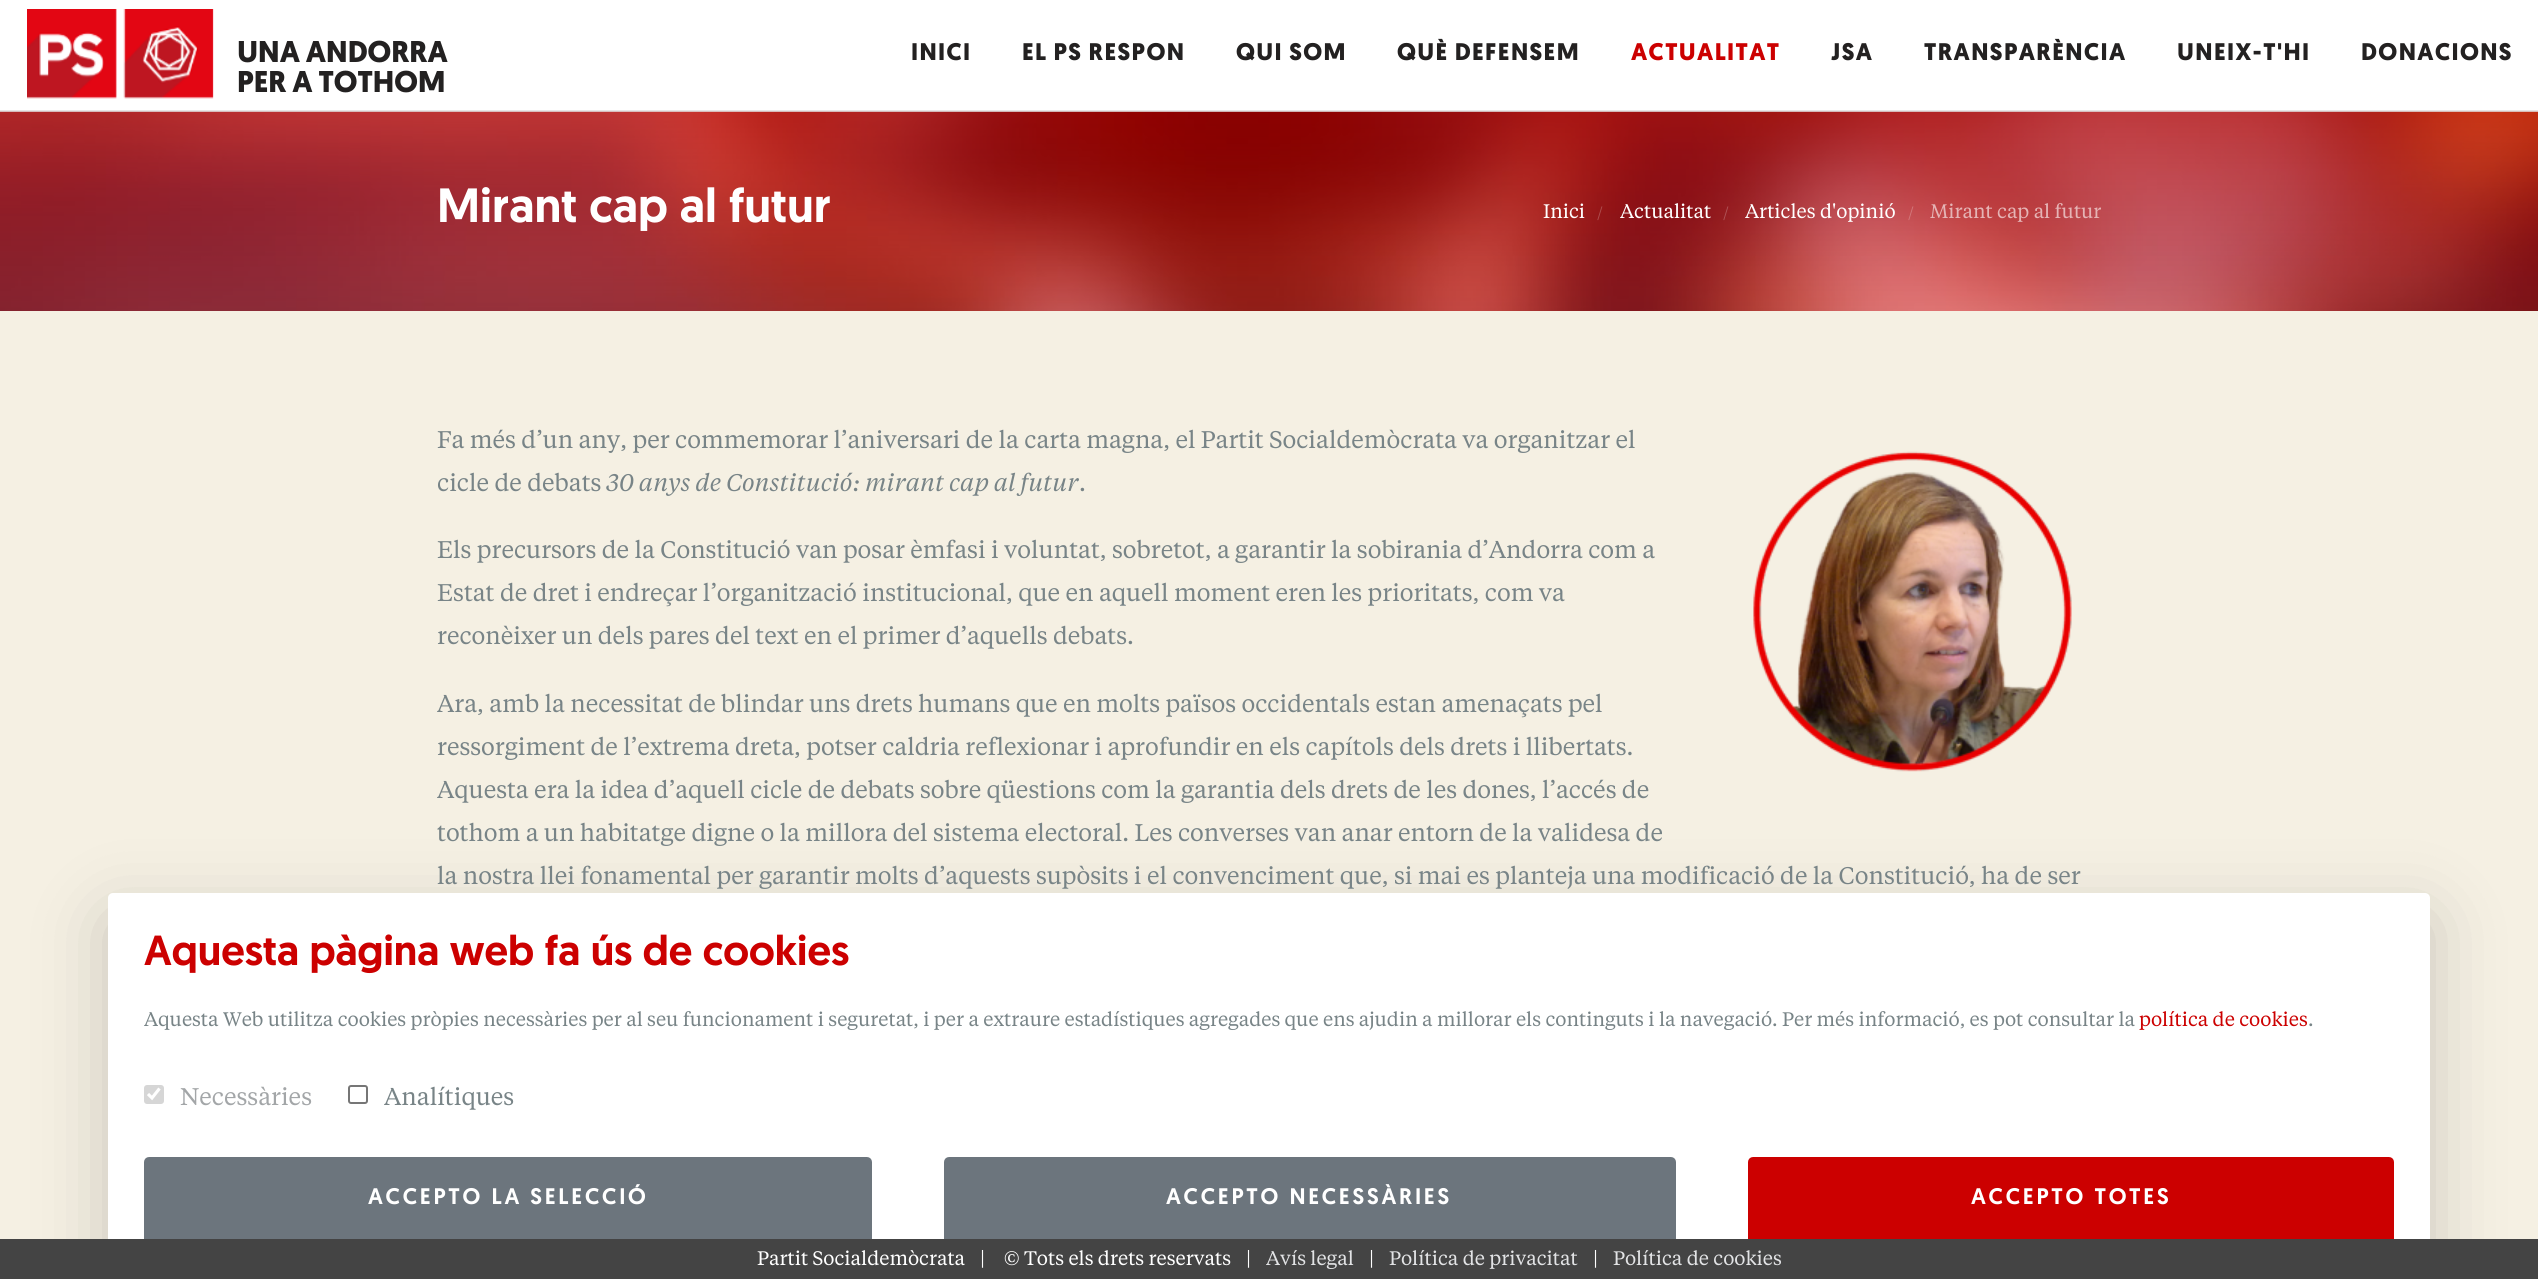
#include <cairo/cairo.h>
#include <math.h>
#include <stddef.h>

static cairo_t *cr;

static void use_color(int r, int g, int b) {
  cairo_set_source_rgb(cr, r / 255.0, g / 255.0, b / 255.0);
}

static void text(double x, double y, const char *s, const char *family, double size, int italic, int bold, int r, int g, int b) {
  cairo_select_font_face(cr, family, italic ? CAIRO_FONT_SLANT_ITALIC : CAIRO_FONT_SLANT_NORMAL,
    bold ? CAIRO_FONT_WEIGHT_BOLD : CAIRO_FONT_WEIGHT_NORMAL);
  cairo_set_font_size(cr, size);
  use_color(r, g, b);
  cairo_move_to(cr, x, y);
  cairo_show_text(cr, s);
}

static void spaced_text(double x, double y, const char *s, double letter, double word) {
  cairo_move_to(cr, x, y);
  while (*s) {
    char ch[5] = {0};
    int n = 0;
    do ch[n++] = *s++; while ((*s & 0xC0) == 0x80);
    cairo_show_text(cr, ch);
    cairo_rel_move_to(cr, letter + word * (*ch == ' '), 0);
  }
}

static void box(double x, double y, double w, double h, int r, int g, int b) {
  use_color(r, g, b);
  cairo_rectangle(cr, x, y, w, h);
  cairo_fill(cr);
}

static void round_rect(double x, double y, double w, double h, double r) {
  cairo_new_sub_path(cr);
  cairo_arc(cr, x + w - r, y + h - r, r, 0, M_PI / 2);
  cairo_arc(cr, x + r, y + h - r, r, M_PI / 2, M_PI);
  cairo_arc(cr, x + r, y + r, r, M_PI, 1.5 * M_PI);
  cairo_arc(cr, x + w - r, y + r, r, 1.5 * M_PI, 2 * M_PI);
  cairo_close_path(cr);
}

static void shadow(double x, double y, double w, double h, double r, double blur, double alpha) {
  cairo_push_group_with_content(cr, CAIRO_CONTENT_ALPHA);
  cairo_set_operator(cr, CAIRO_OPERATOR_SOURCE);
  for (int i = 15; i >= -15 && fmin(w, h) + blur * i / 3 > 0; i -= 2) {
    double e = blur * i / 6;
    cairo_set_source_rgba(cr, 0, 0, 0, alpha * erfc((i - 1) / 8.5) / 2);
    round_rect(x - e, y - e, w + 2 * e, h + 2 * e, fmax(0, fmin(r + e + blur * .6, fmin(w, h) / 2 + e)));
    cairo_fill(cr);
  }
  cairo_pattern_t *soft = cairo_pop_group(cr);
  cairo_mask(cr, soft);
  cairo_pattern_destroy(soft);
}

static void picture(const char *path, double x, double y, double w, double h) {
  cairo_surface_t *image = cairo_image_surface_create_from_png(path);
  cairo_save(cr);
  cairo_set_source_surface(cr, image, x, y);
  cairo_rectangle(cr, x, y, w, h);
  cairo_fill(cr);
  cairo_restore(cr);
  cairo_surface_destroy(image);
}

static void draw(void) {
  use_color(245, 240, 227);
  cairo_paint(cr);
  box(0, 0, 2538, 111, 255, 255, 255);
  picture("img_02.png", 0, 111, 2538, 200);
  cairo_set_source_rgba(cr, 0.875, 0.875, 0.875, 0.8);
  cairo_rectangle(cr, 0, 110, 2538, 2);
  cairo_fill(cr);
  picture("img_01.png", 27, 9, 187, 90);
  picture("img_03.png", 1753, 451, 319, 321);
  use_color(0, 0, 0);
  shadow(108, 917, 2322, 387, 5, 36, 0.18);
  use_color(255, 255, 255);
  round_rect(108, 893, 2322, 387, 5);
  cairo_fill(cr);
  use_color(214, 214, 214);
  round_rect(144, 1085, 20, 19, 3);
  cairo_fill(cr);
  cairo_new_path(cr);
  cairo_move_to(cr, 148, 1094);
  cairo_line_to(cr, 152, 1098);
  cairo_line_to(cr, 159.5, 1088.5);
  use_color(255, 255, 255);
  cairo_set_line_width(cr, 3.1);
  cairo_stroke(cr);
  round_rect(349, 1086, 18, 17, 2);
  use_color(118, 118, 118);
  cairo_set_line_width(cr, 2);
  cairo_stroke(cr);
  use_color(108, 117, 125);
  round_rect(145.5, 1158.5, 725, 84, 3.5);
  cairo_fill_preserve(cr);
  cairo_set_line_width(cr, 3);
  cairo_stroke(cr);
  round_rect(945.5, 1158.5, 729, 84, 3.5);
  cairo_fill_preserve(cr);
  cairo_stroke(cr);
  use_color(204, 0, 0);
  round_rect(1749.5, 1158.5, 643, 84, 3.5);
  cairo_fill_preserve(cr);
  cairo_stroke(cr);
  box(0, 1239, 2538, 40, 68, 68, 68);
  text(237, 62, "UNA ANDORRA", "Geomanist", 30, 0, 1, 35, 33, 33);
  text(237, 92, "PER A TOTHOM", "Geomanist", 30, 0, 1, 35, 33, 33);
  cairo_set_font_size(cr, 24);
  spaced_text(911, 60, "INICI", 1.4, 0);
  spaced_text(1022, 60, "EL PS RESPON", 1.4, 0);
  spaced_text(1236, 60, "QUI SOM", 1.4, 0);
  spaced_text(1397, 60, "QUÈ DEFENSEM", 1.4, 0);
  use_color(204, 0, 0);
  spaced_text(1631, 60, "ACTUALITAT", 1.4, 0);
  use_color(35, 33, 33);
  spaced_text(1831, 60, "JSA", 1.4, 0);
  spaced_text(1924, 60, "TRANSPARÈNCIA", 1.4, 0);
  spaced_text(2177, 60, "UNEIX-T'HI", 1.4, 0);
  spaced_text(2361, 60, "DONACIONS", 1.4, 0);
  text(437, 222, "Mirant cap al futur", "Geomanist Medium", 48, 0, 0, 255, 255, 255);
  text(1543, 218, "Inici", "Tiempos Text", 19.5, 0, 0, 255, 255, 255);
  text(1597, 218, "/", "Tiempos Text", 15, 0, 0, 174, 78, 79);
  text(1620, 218, "Actualitat", "Tiempos Text", 19.5, 0, 0, 255, 255, 255);
  text(1723, 218, "/", "Tiempos Text", 15, 0, 0, 175, 83, 86);
  text(1745, 218, "Articles d'opinió", "Tiempos Text", 19.5, 0, 0, 255, 255, 255);
  text(1908, 218, "/", "Tiempos Text", 15, 0, 0, 210, 120, 123);
  text(1930, 218, "Mirant cap al futur", "Tiempos Text", 19.5, 0, 0, 229, 180, 181);
  text(437, 448, "Fa més d’un any, per commemorar l’aniversari de la carta magna, el Partit Socialdemòcrata va organitzar el", "Tiempos Text", 24, 0, 0, 120, 132, 135);
  text(437, 491, "cicle de debats", "Tiempos Text", 24, 0, 0, 120, 132, 135);
  text(606, 491, "30 anys de Constitució: mirant cap al futur", "Tiempos Text", 24, 1, 0, 120, 132, 135);
  text(1079, 491, ".", "Tiempos Text", 24, 0, 0, 120, 132, 135);
  text(437, 558, "Els precursors de la Constitució van posar èmfasi i voluntat, sobretot, a garantir la sobirania d’Andorra com a", "Tiempos Text", 24, 0, 0, 120, 132, 135);
  text(437, 601, "Estat de dret i endreçar l’organització institucional, que en aquell moment eren les prioritats, com va", "Tiempos Text", 24, 0, 0, 120, 132, 135);
  text(437, 644, "reconèixer un dels pares del text en el primer d’aquells debats.", "Tiempos Text", 24, 0, 0, 120, 132, 135);
  text(437, 712, "Ara, amb la necessitat de blindar uns drets humans que en molts països occidentals estan amenaçats pel", "Tiempos Text", 24, 0, 0, 120, 132, 135);
  text(437, 755, "ressorgiment de l’extrema dreta, potser caldria reflexionar i aprofundir en els capítols dels drets i llibertats.", "Tiempos Text", 24, 0, 0, 120, 132, 135);
  text(437, 798, "Aquesta era la idea d’aquell cicle de debats sobre qüestions com la garantia dels drets de les dones, l’accés de", "Tiempos Text", 24, 0, 0, 120, 132, 135);
  text(437, 841, "tothom a un habitatge digne o la millora del sistema electoral. Les converses van anar entorn de la validesa de", "Tiempos Text", 24, 0, 0, 120, 132, 135);
  text(437, 884, "la nostra llei fonamental per garantir molts d’aquests supòsits i el convenciment que, si mai es planteja una modificació de la Constitució, ha de ser", "Tiempos Text", 24, 0, 0, 120, 132, 135);
  text(144, 965, "Aquesta pàgina web fa ús de cookies", "Geomanist Medium", 42, 0, 0, 204, 0, 0);
  text(144, 1026, "Aquesta Web utilitza cookies pròpies necessàries per al seu funcionament i seguretat, i per a extraure estadístiques agregades que ens ajudin a millorar els continguts i la navegació. Per més informació, es pot consultar la", "Tiempos Text", 19.5, 0, 0, 120, 132, 135);
  text(2139, 1026, "política de cookies", "Tiempos Text", 19.5, 0, 0, 204, 0, 0);
  text(2308, 1026, ".", "Tiempos Text", 19.5, 0, 0, 120, 132, 135);
  text(180, 1105, "Necessàries", "Tiempos Text", 24, 0, 0, 163, 166, 168);
  text(384, 1105, "Analítiques", "Tiempos Text", 24, 0, 0, 120, 132, 135);
  cairo_select_font_face(cr, "Geomanist Medium", CAIRO_FONT_SLANT_NORMAL, CAIRO_FONT_WEIGHT_NORMAL);
  cairo_set_font_size(cr, 22.5);
  use_color(255, 255, 255);
  spaced_text(368, 1204, "ACCEPTO LA SELECCIÓ", 2.75, 0);
  spaced_text(1166, 1204, "ACCEPTO NECESSÀRIES", 2.75, 0);
  spaced_text(1971, 1204, "ACCEPTO TOTES", 2.75, 0);
  text(757, 1265, "Partit Socialdemòcrata", "Tiempos Text", 19.5, 0, 0, 255, 255, 255);
  text(980, 1265, "|", "Tiempos Text", 19.5, 0, 0, 255, 255, 255);
  text(1004, 1265, "© Tots els drets reservats", "Tiempos Text", 19.5, 0, 0, 255, 255, 255);
  text(1246, 1265, "|", "Tiempos Text", 19.5, 0, 0, 255, 255, 255);
  text(1266, 1265, "Avís legal", "Tiempos Text", 19.5, 0, 0, 226, 227, 229);
  text(1369, 1265, "|", "Tiempos Text", 19.5, 0, 0, 255, 255, 255);
  text(1389, 1265, "Política de privacitat", "Tiempos Text", 19.5, 0, 0, 226, 227, 229);
  text(1593, 1265, "|", "Tiempos Text", 19.5, 0, 0, 255, 255, 255);
  text(1613, 1265, "Política de cookies", "Tiempos Text", 19.5, 0, 0, 226, 227, 229);
}

int main(void) {
  cairo_surface_t *surface = cairo_image_surface_create(CAIRO_FORMAT_RGB24, 2538, 1279);
  cr = cairo_create(surface);
  cairo_font_options_t *options = cairo_font_options_create();
  cairo_font_options_set_hint_metrics(options, CAIRO_HINT_METRICS_OFF);
  cairo_font_options_set_hint_style(options, CAIRO_HINT_STYLE_NONE);
  cairo_set_font_options(cr, options);
  cairo_set_miter_limit(cr, 4);
  draw();
  cairo_surface_write_to_png(surface, "out.png");
  cairo_font_options_destroy(options);
  cairo_destroy(cr);
  cairo_surface_destroy(surface);
  return 0;
}
